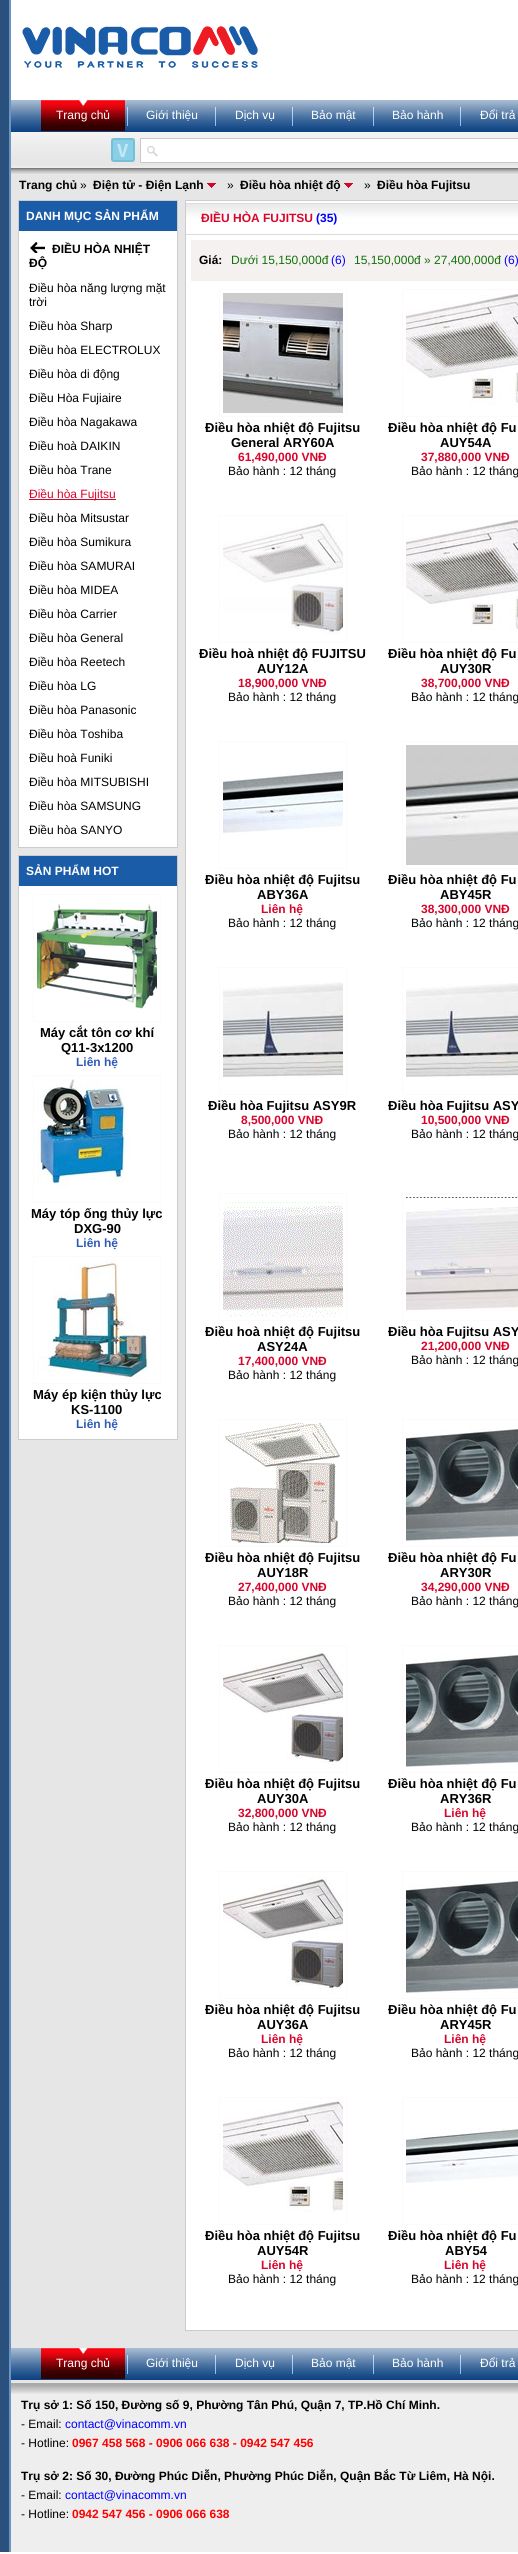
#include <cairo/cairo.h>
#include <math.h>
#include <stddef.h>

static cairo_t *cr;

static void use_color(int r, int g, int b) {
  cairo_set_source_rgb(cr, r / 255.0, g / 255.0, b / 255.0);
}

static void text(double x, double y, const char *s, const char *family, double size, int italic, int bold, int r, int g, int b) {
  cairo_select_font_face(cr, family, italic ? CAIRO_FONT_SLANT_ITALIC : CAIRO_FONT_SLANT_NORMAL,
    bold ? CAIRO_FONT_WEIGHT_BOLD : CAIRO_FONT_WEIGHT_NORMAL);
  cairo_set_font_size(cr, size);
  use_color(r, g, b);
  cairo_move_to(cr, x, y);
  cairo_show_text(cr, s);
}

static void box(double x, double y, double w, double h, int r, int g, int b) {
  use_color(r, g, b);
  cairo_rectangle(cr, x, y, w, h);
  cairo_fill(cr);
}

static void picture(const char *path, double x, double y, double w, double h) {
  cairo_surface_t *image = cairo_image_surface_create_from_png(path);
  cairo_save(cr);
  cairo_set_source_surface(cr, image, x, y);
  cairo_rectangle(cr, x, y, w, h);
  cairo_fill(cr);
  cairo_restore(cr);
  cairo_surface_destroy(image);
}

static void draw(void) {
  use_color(255, 255, 255);
  cairo_paint(cr);
  box(0, 0, 9, 2552, 42, 80, 125);
  box(9, 0, 2, 2552, 108, 148, 194);
  picture("img_01.png", 22, 26, 236, 42);
  picture("img_02.png", 11, 100, 507, 32);
  picture("img_03.png", 127, 107, 1, 19);
  picture("img_04.png", 41, 100, 84, 31);
  picture("img_03.png", 215, 107, 1, 19);
  picture("img_03.png", 292, 107, 1, 19);
  picture("img_03.png", 373, 107, 1, 19);
  picture("img_03.png", 460, 107, 1, 19);
  box(11, 166, 507, 2, 236, 236, 235);
  picture("img_05.png", 11, 132, 507, 34);
  picture("img_06.png", 111, 138, 24, 24);
  box(141, 139, 377, 23, 255, 255, 255);
  picture("img_07.png", 147, 145, 11, 12);
  box(140, 138, 378, 1, 201, 201, 201);
  box(140, 162, 378, 1, 201, 201, 201);
  box(140, 138, 1, 25, 201, 201, 201);
  box(11, 174, 507, 2174, 230, 230, 230);
  picture("img_08.png", 11, 168, 507, 6);
  picture("img_09.png", 207, 183, 9, 5);
  picture("img_09.png", 344, 183, 9, 5);
  box(19, 231, 158, 616, 255, 255, 255);
  cairo_rectangle(cr, 18.5, 200.5, 159, 647);
  use_color(204, 204, 204);
  cairo_set_line_width(cr, 1);
  cairo_stroke(cr);
  box(19, 201, 158, 30, 27, 92, 168);
  picture("img_10.png", 30, 242, 15, 11);
  box(29, 499, 87, 1, 216, 5, 43);
  box(19, 886, 158, 553, 255, 255, 255);
  cairo_rectangle(cr, 18.5, 855.5, 159, 584);
  use_color(204, 204, 204);
  cairo_stroke(cr);
  box(19, 856, 158, 30, 27, 92, 168);
  cairo_rectangle(cr, 33.5, 894.5, 127, 127);
  use_color(252, 250, 250);
  cairo_stroke(cr);
  picture("img_11.png", 37, 903, 120, 106);
  cairo_rectangle(cr, 33.5, 1075.5, 127, 127);
  cairo_stroke(cr);
  picture("img_12.png", 37, 1079, 94, 110);
  cairo_rectangle(cr, 33.5, 1256.5, 127, 127);
  cairo_stroke(cr);
  picture("img_13.png", 37, 1260, 112, 120);
  use_color(255, 255, 255);
  cairo_rectangle(cr, 185.5, 200.5, 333, 2130);
  cairo_fill_preserve(cr);
  use_color(204, 204, 204);
  cairo_stroke(cr);
  picture("img_14.png", 186, 203, 332, 32);
  box(191, 240, 327, 41, 246, 241, 241);
  cairo_rectangle(cr, 219.5, 289.5, 127, 127);
  use_color(252, 250, 250);
  cairo_stroke(cr);
  picture("img_15.png", 223, 293, 120, 120);
  cairo_rectangle(cr, 402.5, 289.5, 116, 127);
  cairo_stroke(cr);
  picture("img_16.png", 406, 294, 112, 111);
  cairo_rectangle(cr, 219.5, 515.5, 127, 127);
  cairo_stroke(cr);
  picture("img_17.png", 223, 521, 120, 114);
  cairo_rectangle(cr, 402.5, 515.5, 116, 127);
  cairo_stroke(cr);
  picture("img_16.png", 406, 520, 112, 111);
  cairo_rectangle(cr, 219.5, 741.5, 127, 127);
  cairo_stroke(cr);
  picture("img_18.png", 223, 770, 120, 63);
  cairo_rectangle(cr, 402.5, 741.5, 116, 127);
  cairo_stroke(cr);
  picture("img_19.png", 406, 745, 112, 120);
  cairo_rectangle(cr, 219.5, 967.5, 127, 127);
  cairo_stroke(cr);
  picture("img_20.png", 223, 982, 120, 96);
  cairo_rectangle(cr, 402.5, 967.5, 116, 127);
  cairo_stroke(cr);
  picture("img_21.png", 406, 983, 112, 95);
  cairo_rectangle(cr, 219.5, 1193.5, 127, 127);
  cairo_stroke(cr);
  picture("img_22.png", 223, 1202, 120, 115);
  cairo_rectangle(cr, 402.5, 1193.5, 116, 127);
  cairo_stroke(cr);
  picture("img_23.png", 406, 1197, 112, 114);
  cairo_rectangle(cr, 219.5, 1419.5, 127, 127);
  cairo_stroke(cr);
  picture("img_24.png", 225, 1423, 115, 120);
  cairo_rectangle(cr, 402.5, 1419.5, 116, 127);
  cairo_stroke(cr);
  picture("img_25.png", 406, 1428, 112, 113);
  cairo_rectangle(cr, 219.5, 1645.5, 127, 127);
  cairo_stroke(cr);
  picture("img_26.png", 223, 1649, 120, 119);
  cairo_rectangle(cr, 402.5, 1645.5, 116, 127);
  cairo_stroke(cr);
  picture("img_25.png", 406, 1654, 112, 113);
  cairo_rectangle(cr, 219.5, 1871.5, 127, 127);
  cairo_stroke(cr);
  picture("img_26.png", 223, 1875, 120, 119);
  cairo_rectangle(cr, 402.5, 1871.5, 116, 127);
  cairo_stroke(cr);
  picture("img_25.png", 406, 1880, 112, 113);
  cairo_rectangle(cr, 219.5, 2097.5, 127, 127);
  cairo_stroke(cr);
  picture("img_27.png", 223, 2101, 120, 112);
  cairo_rectangle(cr, 402.5, 2097.5, 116, 127);
  cairo_stroke(cr);
  picture("img_28.png", 406, 2127, 112, 56);
  picture("img_02.png", 11, 2348, 507, 32);
  picture("img_03.png", 127, 2355, 1, 19);
  picture("img_04.png", 41, 2348, 84, 31);
  picture("img_03.png", 215, 2355, 1, 19);
  picture("img_03.png", 292, 2355, 1, 19);
  picture("img_03.png", 373, 2355, 1, 19);
  picture("img_03.png", 460, 2355, 1, 19);
  box(11, 2394, 507, 158, 238, 238, 238);
  picture("img_29.png", 11, 2383, 507, 11);
  box(11, 2380, 507, 3, 230, 230, 230);
  text(56, 119, "Trang chủ", "Liberation Sans", 12, 0, 0, 255, 255, 255);
  text(146, 119, "Giới thiệu", "Liberation Sans", 12, 0, 0, 255, 255, 255);
  text(235, 119, "Dịch vụ", "Liberation Sans", 12, 0, 0, 255, 255, 255);
  text(311, 119, "Bảo mật", "Liberation Sans", 12, 0, 0, 255, 255, 255);
  text(392, 119, "Bảo hành", "Liberation Sans", 12, 0, 0, 255, 255, 255);
  text(480, 119, "Đổi trả", "Liberation Sans", 12, 0, 0, 255, 255, 255);
  text(19, 189, "Trang chủ", "Liberation Sans", 12, 0, 1, 0, 0, 0);
  text(80, 189, "»", "Liberation Sans", 12, 0, 0, 0, 0, 0);
  text(93, 189, "Điện tử - Điện Lạnh", "Liberation Sans", 12, 0, 1, 0, 0, 0);
  text(227, 189, "»", "Liberation Sans", 12, 0, 0, 0, 0, 0);
  text(240, 189, "Điều hòa nhiệt độ", "Liberation Sans", 12, 0, 1, 0, 0, 0);
  text(364, 189, "»", "Liberation Sans", 12, 0, 0, 0, 0, 0);
  text(377, 189, "Điều hòa Fujitsu", "Liberation Sans", 12, 0, 1, 0, 0, 0);
  text(26, 220, "DANH MỤC SẢN PHẨM", "Liberation Sans", 12, 0, 1, 255, 255, 255);
  text(52, 253, "ĐIỀU HÒA NHIỆT", "Liberation Sans", 12, 0, 1, 0, 0, 0);
  text(29, 267, "ĐỘ", "Liberation Sans", 12, 0, 1, 0, 0, 0);
  text(29, 292, "Điều hòa năng lượng mặt", "Liberation Sans", 12, 0, 0, 0, 0, 0);
  text(29, 306, "trời", "Liberation Sans", 12, 0, 0, 0, 0, 0);
  text(29, 330, "Điều hòa Sharp", "Liberation Sans", 12, 0, 0, 0, 0, 0);
  text(29, 354, "Điều hòa ELECTROLUX", "Liberation Sans", 12, 0, 0, 0, 0, 0);
  text(29, 378, "Điều hòa di động", "Liberation Sans", 12, 0, 0, 0, 0, 0);
  text(29, 402, "Điều Hòa Fujiaire", "Liberation Sans", 12, 0, 0, 0, 0, 0);
  text(29, 426, "Điều hòa Nagakawa", "Liberation Sans", 12, 0, 0, 0, 0, 0);
  text(29, 450, "Điều hoà DAIKIN", "Liberation Sans", 12, 0, 0, 0, 0, 0);
  text(29, 474, "Điều hòa Trane", "Liberation Sans", 12, 0, 0, 0, 0, 0);
  text(29, 498, "Điều hòa Fujitsu", "Liberation Sans", 12, 0, 0, 216, 5, 43);
  text(29, 522, "Điều hòa Mitsustar", "Liberation Sans", 12, 0, 0, 0, 0, 0);
  text(29, 546, "Điều hòa Sumikura", "Liberation Sans", 12, 0, 0, 0, 0, 0);
  text(29, 570, "Điều hòa SAMURAI", "Liberation Sans", 12, 0, 0, 0, 0, 0);
  text(29, 594, "Điều hòa MIDEA", "Liberation Sans", 12, 0, 0, 0, 0, 0);
  text(29, 618, "Điều hòa Carrier", "Liberation Sans", 12, 0, 0, 0, 0, 0);
  text(29, 642, "Điều hòa General", "Liberation Sans", 12, 0, 0, 0, 0, 0);
  text(29, 666, "Điều hòa Reetech", "Liberation Sans", 12, 0, 0, 0, 0, 0);
  text(29, 690, "Điều hòa LG", "Liberation Sans", 12, 0, 0, 0, 0, 0);
  text(29, 714, "Điều hòa Panasonic", "Liberation Sans", 12, 0, 0, 0, 0, 0);
  text(29, 738, "Điều hòa Toshiba", "Liberation Sans", 12, 0, 0, 0, 0, 0);
  text(29, 762, "Điều hoà Funiki", "Liberation Sans", 12, 0, 0, 0, 0, 0);
  text(29, 786, "Điều hòa MITSUBISHI", "Liberation Sans", 12, 0, 0, 0, 0, 0);
  text(29, 810, "Điều hòa SAMSUNG", "Liberation Sans", 12, 0, 0, 0, 0, 0);
  text(29, 834, "Điều hòa SANYO", "Liberation Sans", 12, 0, 0, 0, 0, 0);
  text(26, 875, "SẢN PHẨM HOT", "Liberation Sans", 12, 0, 1, 255, 255, 255);
  text(40, 1037, "Máy cắt tôn cơ khí", "Liberation Sans", 13, 0, 1, 0, 0, 0);
  text(61, 1052, "Q11-3x1200", "Liberation Sans", 13, 0, 1, 0, 0, 0);
  text(76, 1066, "Liên hệ", "Liberation Sans", 12, 0, 1, 47, 91, 183);
  text(31, 1218, "Máy tóp ống thủy lực", "Liberation Sans", 13, 0, 1, 0, 0, 0);
  text(74, 1233, "DXG-90", "Liberation Sans", 13, 0, 1, 0, 0, 0);
  text(76, 1247, "Liên hệ", "Liberation Sans", 12, 0, 1, 47, 91, 183);
  text(33, 1399, "Máy ép kiện thủy lực", "Liberation Sans", 13, 0, 1, 0, 0, 0);
  text(71, 1414, "KS-1100", "Liberation Sans", 13, 0, 1, 0, 0, 0);
  text(76, 1428, "Liên hệ", "Liberation Sans", 12, 0, 1, 47, 91, 183);
  text(201, 222, "ĐIỀU HÒA FUJITSU", "Liberation Sans", 12, 0, 1, 216, 5, 43);
  text(316, 222, "(35)", "Liberation Sans", 12, 0, 1, 0, 0, 255);
  text(199, 264, "Giá:", "Liberation Sans", 12, 0, 1, 0, 0, 0);
  text(231, 264, "Dưới 15,150,000đ", "Liberation Sans", 12, 0, 0, 16, 113, 5);
  text(331, 264, "(6)", "Liberation Sans", 12, 0, 0, 0, 0, 255);
  text(354, 264, "15,150,000đ » 27,400,000đ", "Liberation Sans", 12, 0, 0, 16, 113, 5);
  text(504, 264, "(6)", "Liberation Sans", 12, 0, 0, 0, 0, 255);
  text(205, 432, "Điều hòa nhiệt độ Fujitsu", "Liberation Sans", 13, 0, 1, 0, 0, 0);
  text(231, 447, "General ARY60A", "Liberation Sans", 13, 0, 1, 0, 0, 0);
  text(238, 461, "61,490,000 VNĐ", "Liberation Sans", 12, 0, 1, 216, 5, 43);
  text(228, 475, "Bảo hành : 12 tháng", "Liberation Sans", 12, 0, 0, 0, 0, 0);
  text(388, 432, "Điều hòa nhiệt độ Fu", "Liberation Sans", 13, 0, 1, 0, 0, 0);
  text(440, 447, "AUY54A", "Liberation Sans", 13, 0, 1, 0, 0, 0);
  text(421, 461, "37,880,000 VNĐ", "Liberation Sans", 12, 0, 1, 216, 5, 43);
  text(411, 475, "Bảo hành : 12 tháng", "Liberation Sans", 12, 0, 0, 0, 0, 0);
  text(199, 658, "Điều hoà nhiệt độ FUJITSU", "Liberation Sans", 13, 0, 1, 0, 0, 0);
  text(257, 673, "AUY12A", "Liberation Sans", 13, 0, 1, 0, 0, 0);
  text(238, 687, "18,900,000 VNĐ", "Liberation Sans", 12, 0, 1, 216, 5, 43);
  text(228, 701, "Bảo hành : 12 tháng", "Liberation Sans", 12, 0, 0, 0, 0, 0);
  text(388, 658, "Điều hòa nhiệt độ Fu", "Liberation Sans", 13, 0, 1, 0, 0, 0);
  text(440, 673, "AUY30R", "Liberation Sans", 13, 0, 1, 0, 0, 0);
  text(421, 687, "38,700,000 VNĐ", "Liberation Sans", 12, 0, 1, 216, 5, 43);
  text(411, 701, "Bảo hành : 12 tháng", "Liberation Sans", 12, 0, 0, 0, 0, 0);
  text(205, 884, "Điều hòa nhiệt độ Fujitsu", "Liberation Sans", 13, 0, 1, 0, 0, 0);
  text(257, 899, "ABY36A", "Liberation Sans", 13, 0, 1, 0, 0, 0);
  text(261, 913, "Liên hệ", "Liberation Sans", 12, 0, 1, 216, 5, 43);
  text(228, 927, "Bảo hành : 12 tháng", "Liberation Sans", 12, 0, 0, 0, 0, 0);
  text(388, 884, "Điều hòa nhiệt độ Fu", "Liberation Sans", 13, 0, 1, 0, 0, 0);
  text(440, 899, "ABY45R", "Liberation Sans", 13, 0, 1, 0, 0, 0);
  text(421, 913, "38,300,000 VNĐ", "Liberation Sans", 12, 0, 1, 216, 5, 43);
  text(411, 927, "Bảo hành : 12 tháng", "Liberation Sans", 12, 0, 0, 0, 0, 0);
  text(208, 1110, "Điều hòa Fujitsu ASY9R", "Liberation Sans", 13, 0, 1, 0, 0, 0);
  text(241, 1124, "8,500,000 VNĐ", "Liberation Sans", 12, 0, 1, 216, 5, 43);
  text(228, 1138, "Bảo hành : 12 tháng", "Liberation Sans", 12, 0, 0, 0, 0, 0);
  text(388, 1110, "Điều hòa Fujitsu ASY", "Liberation Sans", 13, 0, 1, 0, 0, 0);
  text(421, 1124, "10,500,000 VNĐ", "Liberation Sans", 12, 0, 1, 216, 5, 43);
  text(411, 1138, "Bảo hành : 12 tháng", "Liberation Sans", 12, 0, 0, 0, 0, 0);
  text(205, 1336, "Điều hoà nhiệt độ Fujitsu", "Liberation Sans", 13, 0, 1, 0, 0, 0);
  text(257, 1351, "ASY24A", "Liberation Sans", 13, 0, 1, 0, 0, 0);
  text(238, 1365, "17,400,000 VNĐ", "Liberation Sans", 12, 0, 1, 216, 5, 43);
  text(228, 1379, "Bảo hành : 12 tháng", "Liberation Sans", 12, 0, 0, 0, 0, 0);
  text(388, 1336, "Điều hòa Fujitsu ASY", "Liberation Sans", 13, 0, 1, 0, 0, 0);
  text(421, 1350, "21,200,000 VNĐ", "Liberation Sans", 12, 0, 1, 216, 5, 43);
  text(411, 1364, "Bảo hành : 12 tháng", "Liberation Sans", 12, 0, 0, 0, 0, 0);
  text(205, 1562, "Điều hòa nhiệt độ Fujitsu", "Liberation Sans", 13, 0, 1, 0, 0, 0);
  text(257, 1577, "AUY18R", "Liberation Sans", 13, 0, 1, 0, 0, 0);
  text(238, 1591, "27,400,000 VNĐ", "Liberation Sans", 12, 0, 1, 216, 5, 43);
  text(228, 1605, "Bảo hành : 12 tháng", "Liberation Sans", 12, 0, 0, 0, 0, 0);
  text(388, 1562, "Điều hòa nhiệt độ Fu", "Liberation Sans", 13, 0, 1, 0, 0, 0);
  text(440, 1577, "ARY30R", "Liberation Sans", 13, 0, 1, 0, 0, 0);
  text(421, 1591, "34,290,000 VNĐ", "Liberation Sans", 12, 0, 1, 216, 5, 43);
  text(411, 1605, "Bảo hành : 12 tháng", "Liberation Sans", 12, 0, 0, 0, 0, 0);
  text(205, 1788, "Điều hòa nhiệt độ Fujitsu", "Liberation Sans", 13, 0, 1, 0, 0, 0);
  text(257, 1803, "AUY30A", "Liberation Sans", 13, 0, 1, 0, 0, 0);
  text(238, 1817, "32,800,000 VNĐ", "Liberation Sans", 12, 0, 1, 216, 5, 43);
  text(228, 1831, "Bảo hành : 12 tháng", "Liberation Sans", 12, 0, 0, 0, 0, 0);
  text(388, 1788, "Điều hòa nhiệt độ Fu", "Liberation Sans", 13, 0, 1, 0, 0, 0);
  text(440, 1803, "ARY36R", "Liberation Sans", 13, 0, 1, 0, 0, 0);
  text(444, 1817, "Liên hệ", "Liberation Sans", 12, 0, 1, 216, 5, 43);
  text(411, 1831, "Bảo hành : 12 tháng", "Liberation Sans", 12, 0, 0, 0, 0, 0);
  text(205, 2014, "Điều hòa nhiệt độ Fujitsu", "Liberation Sans", 13, 0, 1, 0, 0, 0);
  text(257, 2029, "AUY36A", "Liberation Sans", 13, 0, 1, 0, 0, 0);
  text(261, 2043, "Liên hệ", "Liberation Sans", 12, 0, 1, 216, 5, 43);
  text(228, 2057, "Bảo hành : 12 tháng", "Liberation Sans", 12, 0, 0, 0, 0, 0);
  text(388, 2014, "Điều hòa nhiệt độ Fu", "Liberation Sans", 13, 0, 1, 0, 0, 0);
  text(440, 2029, "ARY45R", "Liberation Sans", 13, 0, 1, 0, 0, 0);
  text(444, 2043, "Liên hệ", "Liberation Sans", 12, 0, 1, 216, 5, 43);
  text(411, 2057, "Bảo hành : 12 tháng", "Liberation Sans", 12, 0, 0, 0, 0, 0);
  text(205, 2240, "Điều hòa nhiệt độ Fujitsu", "Liberation Sans", 13, 0, 1, 0, 0, 0);
  text(257, 2255, "AUY54R", "Liberation Sans", 13, 0, 1, 0, 0, 0);
  text(261, 2269, "Liên hệ", "Liberation Sans", 12, 0, 1, 216, 5, 43);
  text(228, 2283, "Bảo hành : 12 tháng", "Liberation Sans", 12, 0, 0, 0, 0, 0);
  text(388, 2240, "Điều hòa nhiệt độ Fu", "Liberation Sans", 13, 0, 1, 0, 0, 0);
  text(445, 2255, "ABY54", "Liberation Sans", 13, 0, 1, 0, 0, 0);
  text(444, 2269, "Liên hệ", "Liberation Sans", 12, 0, 1, 216, 5, 43);
  text(411, 2283, "Bảo hành : 12 tháng", "Liberation Sans", 12, 0, 0, 0, 0, 0);
  text(56, 2367, "Trang chủ", "Liberation Sans", 12, 0, 0, 255, 255, 255);
  text(146, 2367, "Giới thiệu", "Liberation Sans", 12, 0, 0, 255, 255, 255);
  text(235, 2367, "Dịch vụ", "Liberation Sans", 12, 0, 0, 255, 255, 255);
  text(311, 2367, "Bảo mật", "Liberation Sans", 12, 0, 0, 255, 255, 255);
  text(392, 2367, "Bảo hành", "Liberation Sans", 12, 0, 0, 255, 255, 255);
  text(480, 2367, "Đổi trả", "Liberation Sans", 12, 0, 0, 255, 255, 255);
  text(21, 2409, "Trụ sở 1: Số 150, Đường số 9, Phường Tân Phú, Quận 7, TP.Hồ Chí Minh.", "Liberation Sans", 12, 0, 1, 0, 0, 0);
  text(21, 2428, "- Email:", "Liberation Sans", 12, 0, 0, 0, 0, 0);
  text(65, 2428, "contact@vinacomm.vn", "Liberation Sans", 12, 0, 0, 0, 0, 255);
  text(21, 2447, "- Hotline:", "Liberation Sans", 12, 0, 0, 0, 0, 0);
  text(72, 2447, "0967 458 568 - 0906 066 638 - 0942 547 456", "Liberation Sans", 12, 0, 1, 255, 0, 0);
  text(21, 2480, "Trụ sở 2: Số 30, Đường Phúc Diễn, Phường Phúc Diễn, Quận Bắc Từ Liêm, Hà Nội.", "Liberation Sans", 12, 0, 1, 0, 0, 0);
  text(21, 2499, "- Email:", "Liberation Sans", 12, 0, 0, 0, 0, 0);
  text(65, 2499, "contact@vinacomm.vn", "Liberation Sans", 12, 0, 0, 0, 0, 255);
  text(21, 2518, "- Hotline:", "Liberation Sans", 12, 0, 0, 0, 0, 0);
  text(72, 2518, "0942 547 456 - 0906 066 638", "Liberation Sans", 12, 0, 1, 255, 0, 0);
}

int main(void) {
  cairo_surface_t *surface = cairo_image_surface_create(CAIRO_FORMAT_RGB24, 518, 2554);
  cr = cairo_create(surface);
  cairo_font_options_t *options = cairo_font_options_create();
  cairo_font_options_set_hint_metrics(options, CAIRO_HINT_METRICS_OFF);
  cairo_font_options_set_hint_style(options, CAIRO_HINT_STYLE_NONE);
  cairo_set_font_options(cr, options);
  cairo_set_miter_limit(cr, 4);
  draw();
  cairo_surface_write_to_png(surface, "out.png");
  cairo_font_options_destroy(options);
  cairo_destroy(cr);
  cairo_surface_destroy(surface);
  return 0;
}
